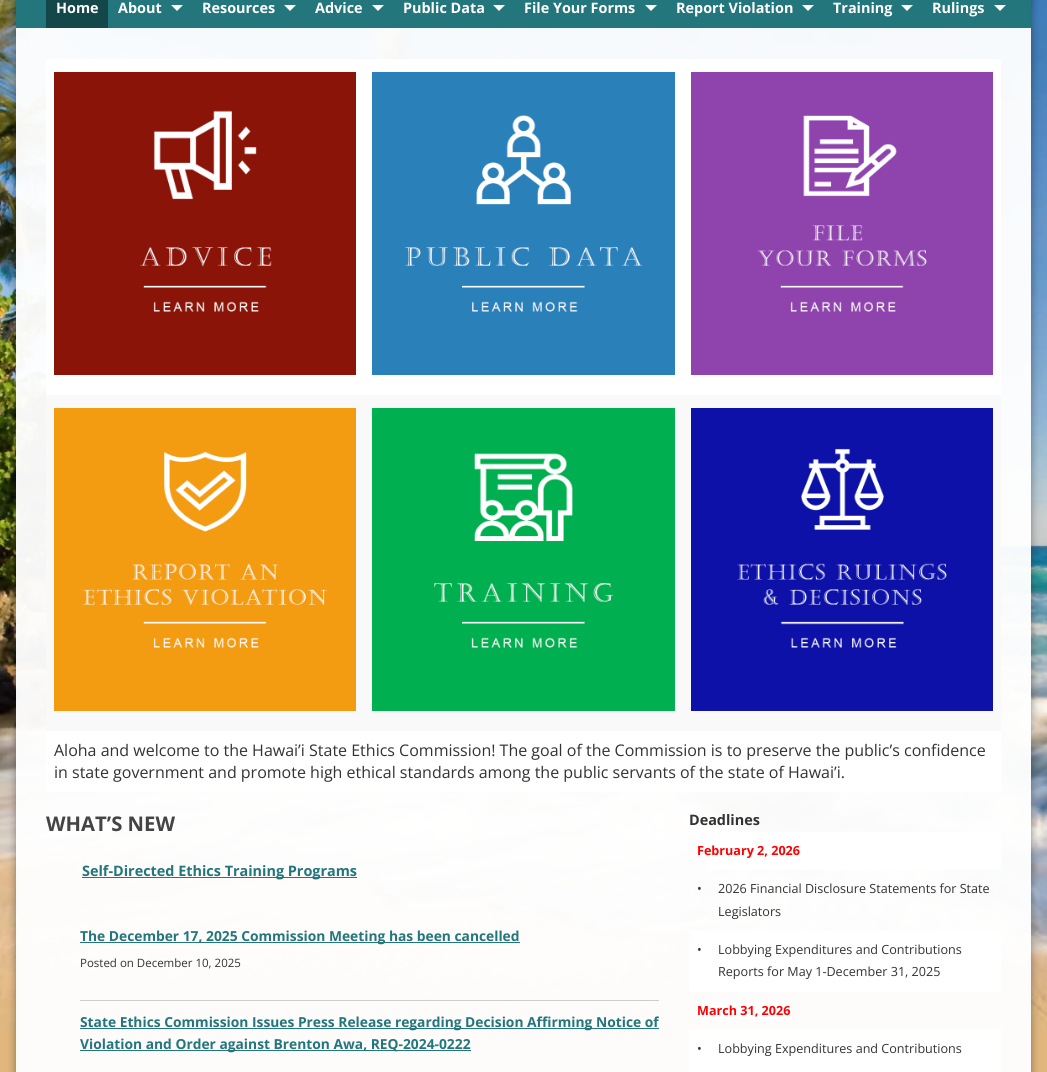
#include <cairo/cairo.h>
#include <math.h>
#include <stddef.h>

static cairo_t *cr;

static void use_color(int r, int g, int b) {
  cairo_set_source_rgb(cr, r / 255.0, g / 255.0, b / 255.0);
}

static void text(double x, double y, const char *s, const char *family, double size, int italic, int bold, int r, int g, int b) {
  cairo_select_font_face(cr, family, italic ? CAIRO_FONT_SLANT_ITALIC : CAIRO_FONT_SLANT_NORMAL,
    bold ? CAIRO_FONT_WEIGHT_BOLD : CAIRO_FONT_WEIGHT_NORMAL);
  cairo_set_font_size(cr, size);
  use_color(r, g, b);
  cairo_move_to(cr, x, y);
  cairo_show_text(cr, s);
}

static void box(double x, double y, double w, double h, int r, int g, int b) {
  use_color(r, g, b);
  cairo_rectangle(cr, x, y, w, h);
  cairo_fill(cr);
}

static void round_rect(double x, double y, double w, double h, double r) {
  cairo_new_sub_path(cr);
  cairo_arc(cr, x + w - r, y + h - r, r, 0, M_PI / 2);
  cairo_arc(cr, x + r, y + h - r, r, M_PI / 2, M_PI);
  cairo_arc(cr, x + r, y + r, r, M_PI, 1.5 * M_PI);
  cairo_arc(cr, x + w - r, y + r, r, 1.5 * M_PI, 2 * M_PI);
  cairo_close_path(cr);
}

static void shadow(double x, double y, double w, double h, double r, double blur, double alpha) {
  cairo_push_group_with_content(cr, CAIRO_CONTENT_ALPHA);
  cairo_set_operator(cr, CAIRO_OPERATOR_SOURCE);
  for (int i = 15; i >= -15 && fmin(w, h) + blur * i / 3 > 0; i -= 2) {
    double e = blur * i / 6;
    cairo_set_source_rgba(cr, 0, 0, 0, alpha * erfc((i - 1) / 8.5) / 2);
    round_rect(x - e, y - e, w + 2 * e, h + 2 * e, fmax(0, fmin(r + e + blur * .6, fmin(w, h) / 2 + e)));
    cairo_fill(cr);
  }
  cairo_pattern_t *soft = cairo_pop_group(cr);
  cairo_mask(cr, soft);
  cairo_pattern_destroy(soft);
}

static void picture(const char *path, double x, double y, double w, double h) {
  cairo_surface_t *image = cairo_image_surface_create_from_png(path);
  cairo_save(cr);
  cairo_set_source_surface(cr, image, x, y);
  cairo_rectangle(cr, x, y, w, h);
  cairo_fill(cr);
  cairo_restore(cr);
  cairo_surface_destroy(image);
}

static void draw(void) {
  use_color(255, 255, 255);
  cairo_paint(cr);
  picture("img_01.png", 0, 0, 1047, 1072);
  cairo_save(cr);
  cairo_set_fill_rule(cr, CAIRO_FILL_RULE_EVEN_ODD);
  cairo_new_path(cr);
  cairo_move_to(cr, 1, 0);
  cairo_line_to(cr, 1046, 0);
  cairo_line_to(cr, 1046, 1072);
  cairo_line_to(cr, 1, 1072);
  cairo_close_path(cr);
  cairo_move_to(cr, 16, -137);
  cairo_line_to(cr, 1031, -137);
  cairo_line_to(cr, 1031, 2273);
  cairo_line_to(cr, 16, 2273);
  cairo_close_path(cr);
  cairo_clip(cr);
  use_color(0, 0, 0);
  shadow(16, -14, 1015, 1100, 0, 4.5, 0.4);
  cairo_restore(cr);
  box(16, 0, 1015, 28, 34, 118, 124);
  box(46, 0, 62, 28, 20, 71, 74);
  use_color(255, 255, 255);
  cairo_new_path(cr);
  cairo_move_to(cr, 171, 5);
  cairo_line_to(cr, 183, 5);
  cairo_line_to(cr, 177, 11);
  cairo_close_path(cr);
  cairo_fill(cr);
  cairo_new_path(cr);
  cairo_move_to(cr, 284, 5);
  cairo_line_to(cr, 296, 5);
  cairo_line_to(cr, 290, 11);
  cairo_close_path(cr);
  cairo_fill(cr);
  cairo_new_path(cr);
  cairo_move_to(cr, 372, 5);
  cairo_line_to(cr, 384, 5);
  cairo_line_to(cr, 378, 11);
  cairo_close_path(cr);
  cairo_fill(cr);
  cairo_new_path(cr);
  cairo_move_to(cr, 493, 5);
  cairo_line_to(cr, 505, 5);
  cairo_line_to(cr, 499, 11);
  cairo_close_path(cr);
  cairo_fill(cr);
  cairo_new_path(cr);
  cairo_move_to(cr, 645, 5);
  cairo_line_to(cr, 657, 5);
  cairo_line_to(cr, 651, 11);
  cairo_close_path(cr);
  cairo_fill(cr);
  cairo_new_path(cr);
  cairo_move_to(cr, 802, 5);
  cairo_line_to(cr, 814, 5);
  cairo_line_to(cr, 808, 11);
  cairo_close_path(cr);
  cairo_fill(cr);
  cairo_new_path(cr);
  cairo_move_to(cr, 901, 5);
  cairo_line_to(cr, 913, 5);
  cairo_line_to(cr, 907, 11);
  cairo_close_path(cr);
  cairo_fill(cr);
  cairo_new_path(cr);
  cairo_move_to(cr, 994, 5);
  cairo_line_to(cr, 1006, 5);
  cairo_line_to(cr, 1000, 11);
  cairo_close_path(cr);
  cairo_fill(cr);
  box(46, 59, 955, 336, 255, 255, 255);
  picture("img_02.png", 54, 72, 302, 303);
  picture("img_03.png", 372, 72, 303, 303);
  picture("img_04.png", 691, 72, 302, 303);
  box(46, 395, 955, 336, 249, 249, 249);
  picture("img_05.png", 54, 408, 302, 303);
  picture("img_06.png", 372, 408, 303, 303);
  picture("img_07.png", 691, 408, 302, 303);
  box(46, 731, 955, 61, 255, 255, 255);
  box(82, 877, 275, 1, 34, 118, 124);
  box(80, 1000, 579, 1, 204, 204, 204);
  box(80, 942, 440, 1, 34, 118, 124);
  box(80, 1028, 579, 1, 34, 118, 124);
  box(80, 1050, 391, 1, 34, 118, 124);
  box(708, 832, 293, 38, 255, 255, 255);
  box(689, 931, 312, 61, 255, 255, 255);
  box(697, 1002, 94, 17, 255, 255, 255);
  box(689, 1030, 312, 42, 255, 255, 255);
  text(56, 13, "Home", "Open Sans", 14.4, 0, 1, 255, 255, 255);
  text(118, 13, "About", "Open Sans", 14.4, 0, 1, 255, 255, 255);
  text(202, 13, "Resources", "Open Sans", 14.4, 0, 1, 255, 255, 255);
  text(315, 13, "Advice", "Open Sans", 14.4, 0, 1, 255, 255, 255);
  text(403, 13, "Public Data", "Open Sans", 14.4, 0, 1, 255, 255, 255);
  text(524, 13, "File Your Forms", "Open Sans", 14.4, 0, 1, 255, 255, 255);
  text(676, 13, "Report Violation", "Open Sans", 14.4, 0, 1, 255, 255, 255);
  text(833, 13, "Training", "Open Sans", 14.4, 0, 1, 255, 255, 255);
  text(932, 13, "Rulings", "Open Sans", 14.4, 0, 1, 255, 255, 255);
  text(54, 756, "Aloha and welcome to the Hawai’i State Ethics Commission! The goal of the Commission is to preserve the public’s confidence", "Open Sans", 16, 0, 0, 51, 51, 51);
  text(54, 778, "in state government and promote high ethical standards among the public servants of the state of Hawai’i.", "Open Sans", 16, 0, 0, 51, 51, 51);
  text(46, 831, "WHAT’S NEW", "Open Sans", 20.25, 0, 1, 68, 68, 68);
  text(82, 876, "Self-Directed Ethics Training Programs", "Open Sans", 14.4, 0, 1, 34, 118, 124);
  text(80, 941, "The December 17, 2025 Commission Meeting has been cancelled", "Open Sans", 13.8, 0, 1, 34, 118, 124);
  text(80, 967, "Posted on December 10, 2025", "Open Sans", 11.5, 0, 0, 51, 51, 51);
  text(80, 1027, "State Ethics Commission Issues Press Release regarding Decision Affirming Notice of", "Open Sans", 13.8, 0, 1, 34, 118, 124);
  text(80, 1049, "Violation and Order against Brenton Awa, REQ-2024-0222", "Open Sans", 13.8, 0, 1, 34, 118, 124);
  text(689, 825, "Deadlines", "Open Sans", 14.4, 0, 1, 51, 51, 51);
  text(697, 855, "February 2, 2026", "Open Sans", 12.6, 0, 1, 255, 0, 0);
  text(697, 893, "•", "Open Sans", 12.6, 0, 0, 51, 51, 51);
  text(718, 893, "2026 Financial Disclosure Statements for State", "Open Sans", 12.6, 0, 0, 51, 51, 51);
  text(718, 916, "Legislators", "Open Sans", 12.6, 0, 0, 51, 51, 51);
  text(697, 954, "•", "Open Sans", 12.6, 0, 0, 51, 51, 51);
  text(718, 954, "Lobbying Expenditures and Contributions", "Open Sans", 12.6, 0, 0, 51, 51, 51);
  text(718, 976, "Reports for May 1-December 31, 2025", "Open Sans", 12.6, 0, 0, 51, 51, 51);
  text(697, 1015, "March 31, 2026", "Open Sans", 12.6, 0, 1, 255, 0, 0);
  text(697, 1053, "•", "Open Sans", 12.6, 0, 0, 51, 51, 51);
  text(718, 1053, "Lobbying Expenditures and Contributions", "Open Sans", 12.6, 0, 0, 51, 51, 51);
}

int main(void) {
  cairo_surface_t *surface = cairo_image_surface_create(CAIRO_FORMAT_RGB24, 1047, 1072);
  cr = cairo_create(surface);
  cairo_font_options_t *options = cairo_font_options_create();
  cairo_font_options_set_hint_metrics(options, CAIRO_HINT_METRICS_OFF);
  cairo_font_options_set_hint_style(options, CAIRO_HINT_STYLE_NONE);
  cairo_set_font_options(cr, options);
  cairo_set_miter_limit(cr, 4);
  draw();
  cairo_surface_write_to_png(surface, "out.png");
  cairo_font_options_destroy(options);
  cairo_destroy(cr);
  cairo_surface_destroy(surface);
  return 0;
}
